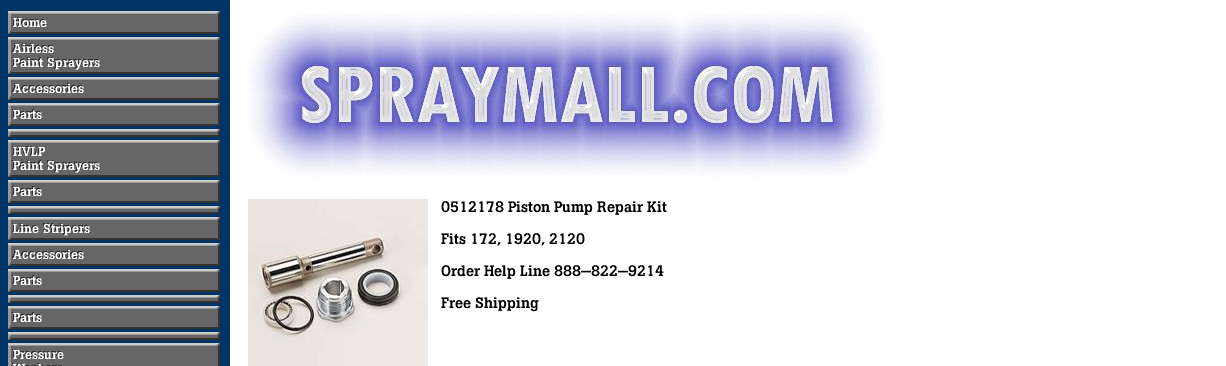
#include <cairo/cairo.h>
#include <math.h>
#include <stddef.h>

static cairo_t *cr;

static void use_color(int r, int g, int b) {
  cairo_set_source_rgb(cr, r / 255.0, g / 255.0, b / 255.0);
}

static void box(double x, double y, double w, double h, int r, int g, int b) {
  use_color(r, g, b);
  cairo_rectangle(cr, x, y, w, h);
  cairo_fill(cr);
}

static void picture(const char *path, double x, double y, double w, double h) {
  cairo_surface_t *image = cairo_image_surface_create_from_png(path);
  cairo_save(cr);
  cairo_set_source_surface(cr, image, x, y);
  cairo_rectangle(cr, x, y, w, h);
  cairo_fill(cr);
  cairo_restore(cr);
  cairo_surface_destroy(image);
}

static void draw(void) {
  use_color(255, 255, 255);
  cairo_paint(cr);
  box(0, 0, 230, 366, 0, 51, 102);
  picture("img_01.png", 8, 11, 212, 355);
  picture("img_02.png", 248, 13, 636, 164);
  picture("img_03.png", 248, 199, 180, 167);
  picture("img_04.png", 441, 201, 226, 111);
}

int main(void) {
  cairo_surface_t *surface = cairo_image_surface_create(CAIRO_FORMAT_RGB24, 1226, 366);
  cr = cairo_create(surface);
  cairo_font_options_t *options = cairo_font_options_create();
  cairo_font_options_set_hint_metrics(options, CAIRO_HINT_METRICS_OFF);
  cairo_font_options_set_hint_style(options, CAIRO_HINT_STYLE_NONE);
  cairo_set_font_options(cr, options);
  cairo_set_miter_limit(cr, 4);
  draw();
  cairo_surface_write_to_png(surface, "out.png");
  cairo_font_options_destroy(options);
  cairo_destroy(cr);
  cairo_surface_destroy(surface);
  return 0;
}
